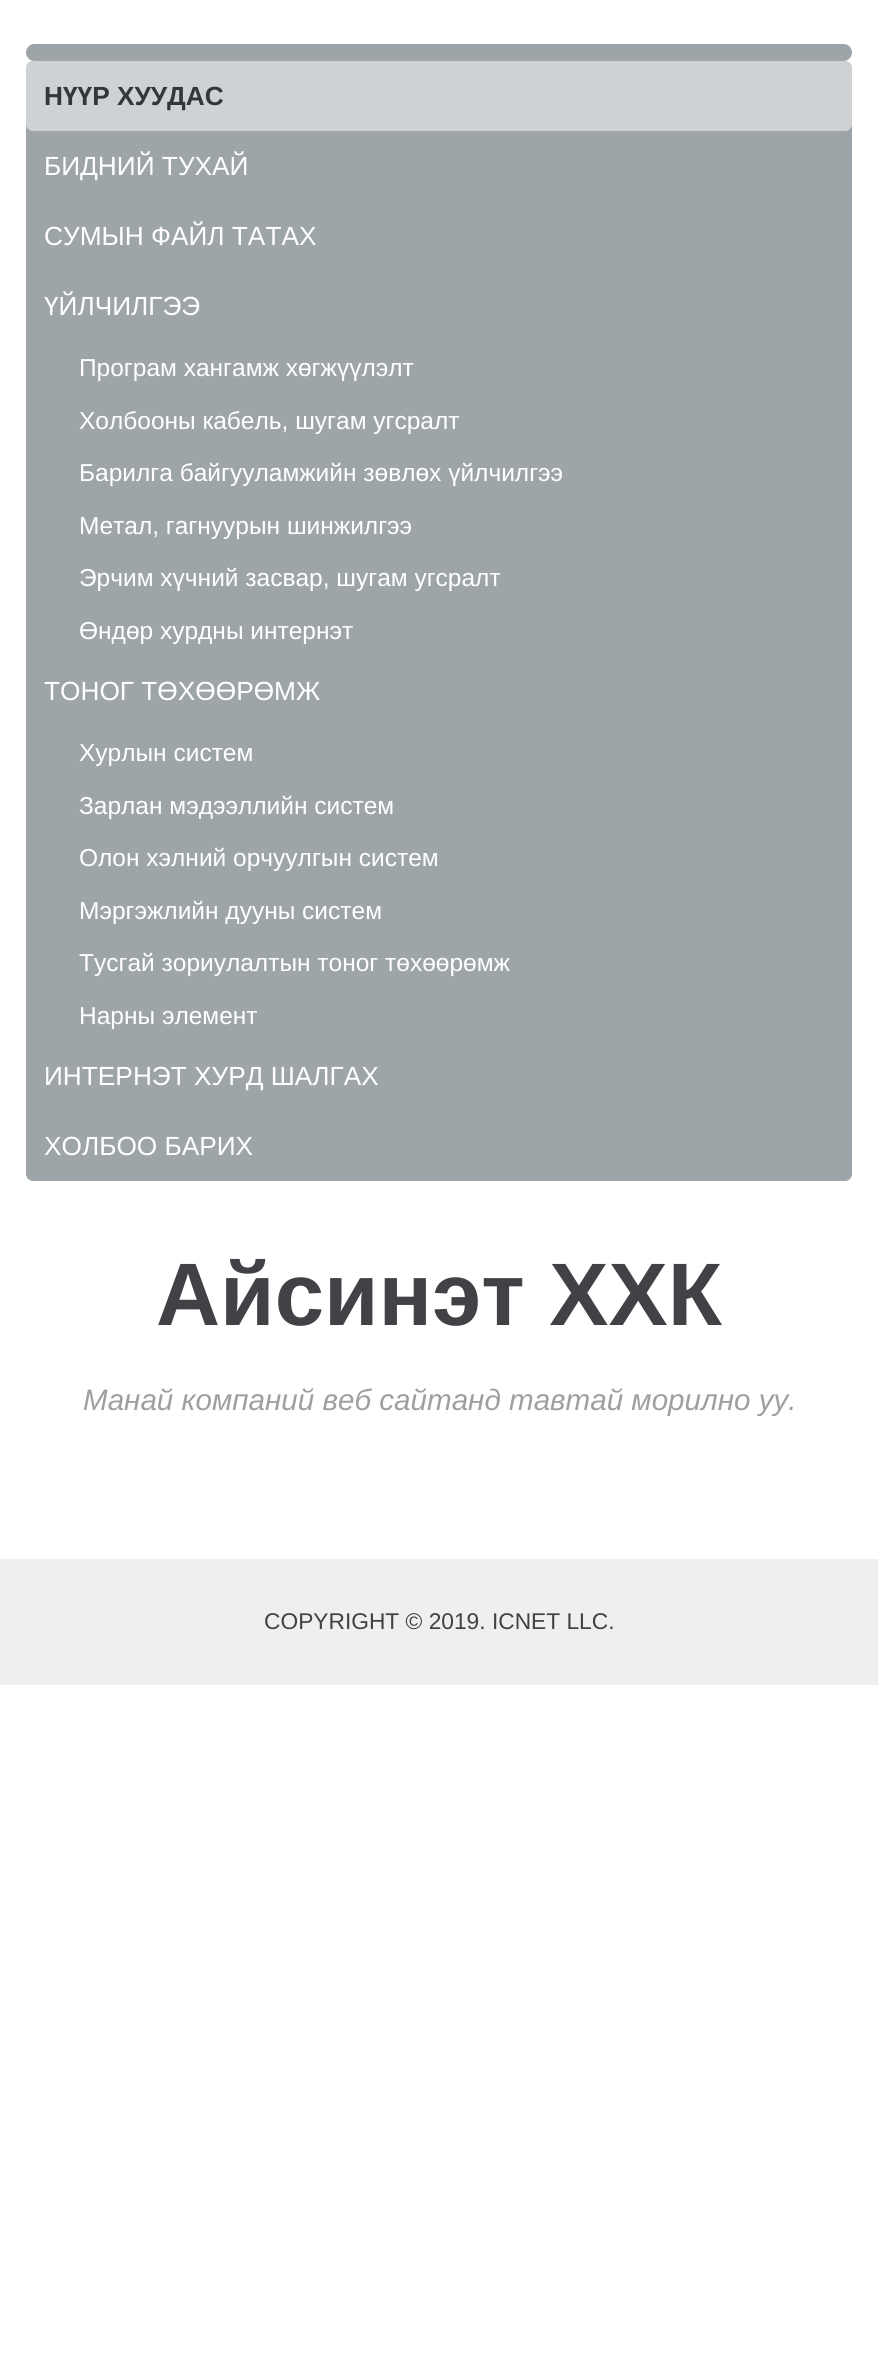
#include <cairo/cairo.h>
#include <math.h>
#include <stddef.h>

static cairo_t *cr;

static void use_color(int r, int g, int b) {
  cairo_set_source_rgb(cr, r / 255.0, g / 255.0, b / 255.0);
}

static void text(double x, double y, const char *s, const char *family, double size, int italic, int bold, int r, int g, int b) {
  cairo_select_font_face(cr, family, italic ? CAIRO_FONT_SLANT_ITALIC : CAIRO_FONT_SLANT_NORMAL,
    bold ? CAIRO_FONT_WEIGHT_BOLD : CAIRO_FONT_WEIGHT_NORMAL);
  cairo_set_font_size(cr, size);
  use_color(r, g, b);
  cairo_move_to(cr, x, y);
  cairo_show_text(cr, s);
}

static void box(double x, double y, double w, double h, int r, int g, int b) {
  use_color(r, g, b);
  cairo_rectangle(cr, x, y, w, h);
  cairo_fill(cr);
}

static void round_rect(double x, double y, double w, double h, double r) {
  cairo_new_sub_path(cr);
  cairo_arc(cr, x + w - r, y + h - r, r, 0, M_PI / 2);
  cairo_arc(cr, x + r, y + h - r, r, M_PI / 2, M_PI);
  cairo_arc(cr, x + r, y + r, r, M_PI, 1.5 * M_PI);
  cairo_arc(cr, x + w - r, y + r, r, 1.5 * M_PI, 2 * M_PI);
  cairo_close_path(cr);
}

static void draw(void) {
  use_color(255, 255, 255);
  cairo_paint(cr);
  use_color(158, 165, 169);
  round_rect(26, 44, 826, 17, 8.5);
  cairo_fill(cr);
  round_rect(26, 61, 826, 1120, 7);
  cairo_fill(cr);
  cairo_set_source_rgba(cr, 1, 1, 1, 0.5);
  round_rect(26, 61, 826, 70, 7);
  cairo_fill(cr);
  box(0, 1559, 878, 126, 239, 239, 239);
  text(44, 105, "НҮҮР ХУУДАС", "Liberation Sans", 26.25, 0, 1, 50, 55, 61);
  text(44, 175, "БИДНИЙ ТУХАЙ", "Liberation Sans", 26.25, 0, 0, 255, 255, 255);
  text(44, 245, "СУМЫН ФАЙЛ ТАТАХ", "Liberation Sans", 26.25, 0, 0, 255, 255, 255);
  text(44, 315, "ҮЙЛЧИЛГЭЭ", "Liberation Sans", 26.25, 0, 0, 255, 255, 255);
  text(79, 376, "Програм хангамж хөгжүүлэлт", "Liberation Sans", 24.5, 0, 0, 255, 255, 255);
  text(79, 429, "Холбооны кабель, шугам угсралт", "Liberation Sans", 24.5, 0, 0, 255, 255, 255);
  text(79, 481, "Барилга байгууламжийн зөвлөх үйлчилгээ", "Liberation Sans", 24.5, 0, 0, 255, 255, 255);
  text(79, 534, "Метал, гагнуурын шинжилгээ", "Liberation Sans", 24.5, 0, 0, 255, 255, 255);
  text(79, 586, "Эрчим хүчний засвар, шугам угсралт", "Liberation Sans", 24.5, 0, 0, 255, 255, 255);
  text(79, 639, "Өндөр хурдны интернэт", "Liberation Sans", 24.5, 0, 0, 255, 255, 255);
  text(44, 700, "ТОНОГ ТӨХӨӨРӨМЖ", "Liberation Sans", 26.25, 0, 0, 255, 255, 255);
  text(79, 761, "Хурлын систем", "Liberation Sans", 24.5, 0, 0, 255, 255, 255);
  text(79, 814, "Зарлан мэдээллийн систем", "Liberation Sans", 24.5, 0, 0, 255, 255, 255);
  text(79, 866, "Олон хэлний орчуулгын систем", "Liberation Sans", 24.5, 0, 0, 255, 255, 255);
  text(79, 919, "Мэргэжлийн дууны систем", "Liberation Sans", 24.5, 0, 0, 255, 255, 255);
  text(79, 971, "Тусгай зориулалтын тоног төхөөрөмж", "Liberation Sans", 24.5, 0, 0, 255, 255, 255);
  text(79, 1024, "Нарны элемент", "Liberation Sans", 24.5, 0, 0, 255, 255, 255);
  text(44, 1085, "ИНТЕРНЭТ ХУРД ШАЛГАХ", "Liberation Sans", 26.25, 0, 0, 255, 255, 255);
  text(44, 1155, "ХОЛБОО БАРИХ", "Liberation Sans", 26.25, 0, 0, 255, 255, 255);
  text(156, 1325, "Айсинэт ХХК", "Liberation Sans", 88.75, 0, 1, 65, 65, 70);
  text(83, 1410, "Манай компаний веб сайтанд тавтай морилно уу.", "Liberation Sans", 29.6, 1, 0, 159, 159, 159);
  text(264, 1629, "COPYRIGHT © 2019. ICNET LLC.", "Liberation Sans", 22.75, 0, 0, 65, 65, 70);
}

int main(void) {
  cairo_surface_t *surface = cairo_image_surface_create(CAIRO_FORMAT_RGB24, 878, 2355);
  cr = cairo_create(surface);
  cairo_font_options_t *options = cairo_font_options_create();
  cairo_font_options_set_hint_metrics(options, CAIRO_HINT_METRICS_OFF);
  cairo_font_options_set_hint_style(options, CAIRO_HINT_STYLE_NONE);
  cairo_set_font_options(cr, options);
  cairo_set_miter_limit(cr, 4);
  draw();
  cairo_surface_write_to_png(surface, "out.png");
  cairo_font_options_destroy(options);
  cairo_destroy(cr);
  cairo_surface_destroy(surface);
  return 0;
}
